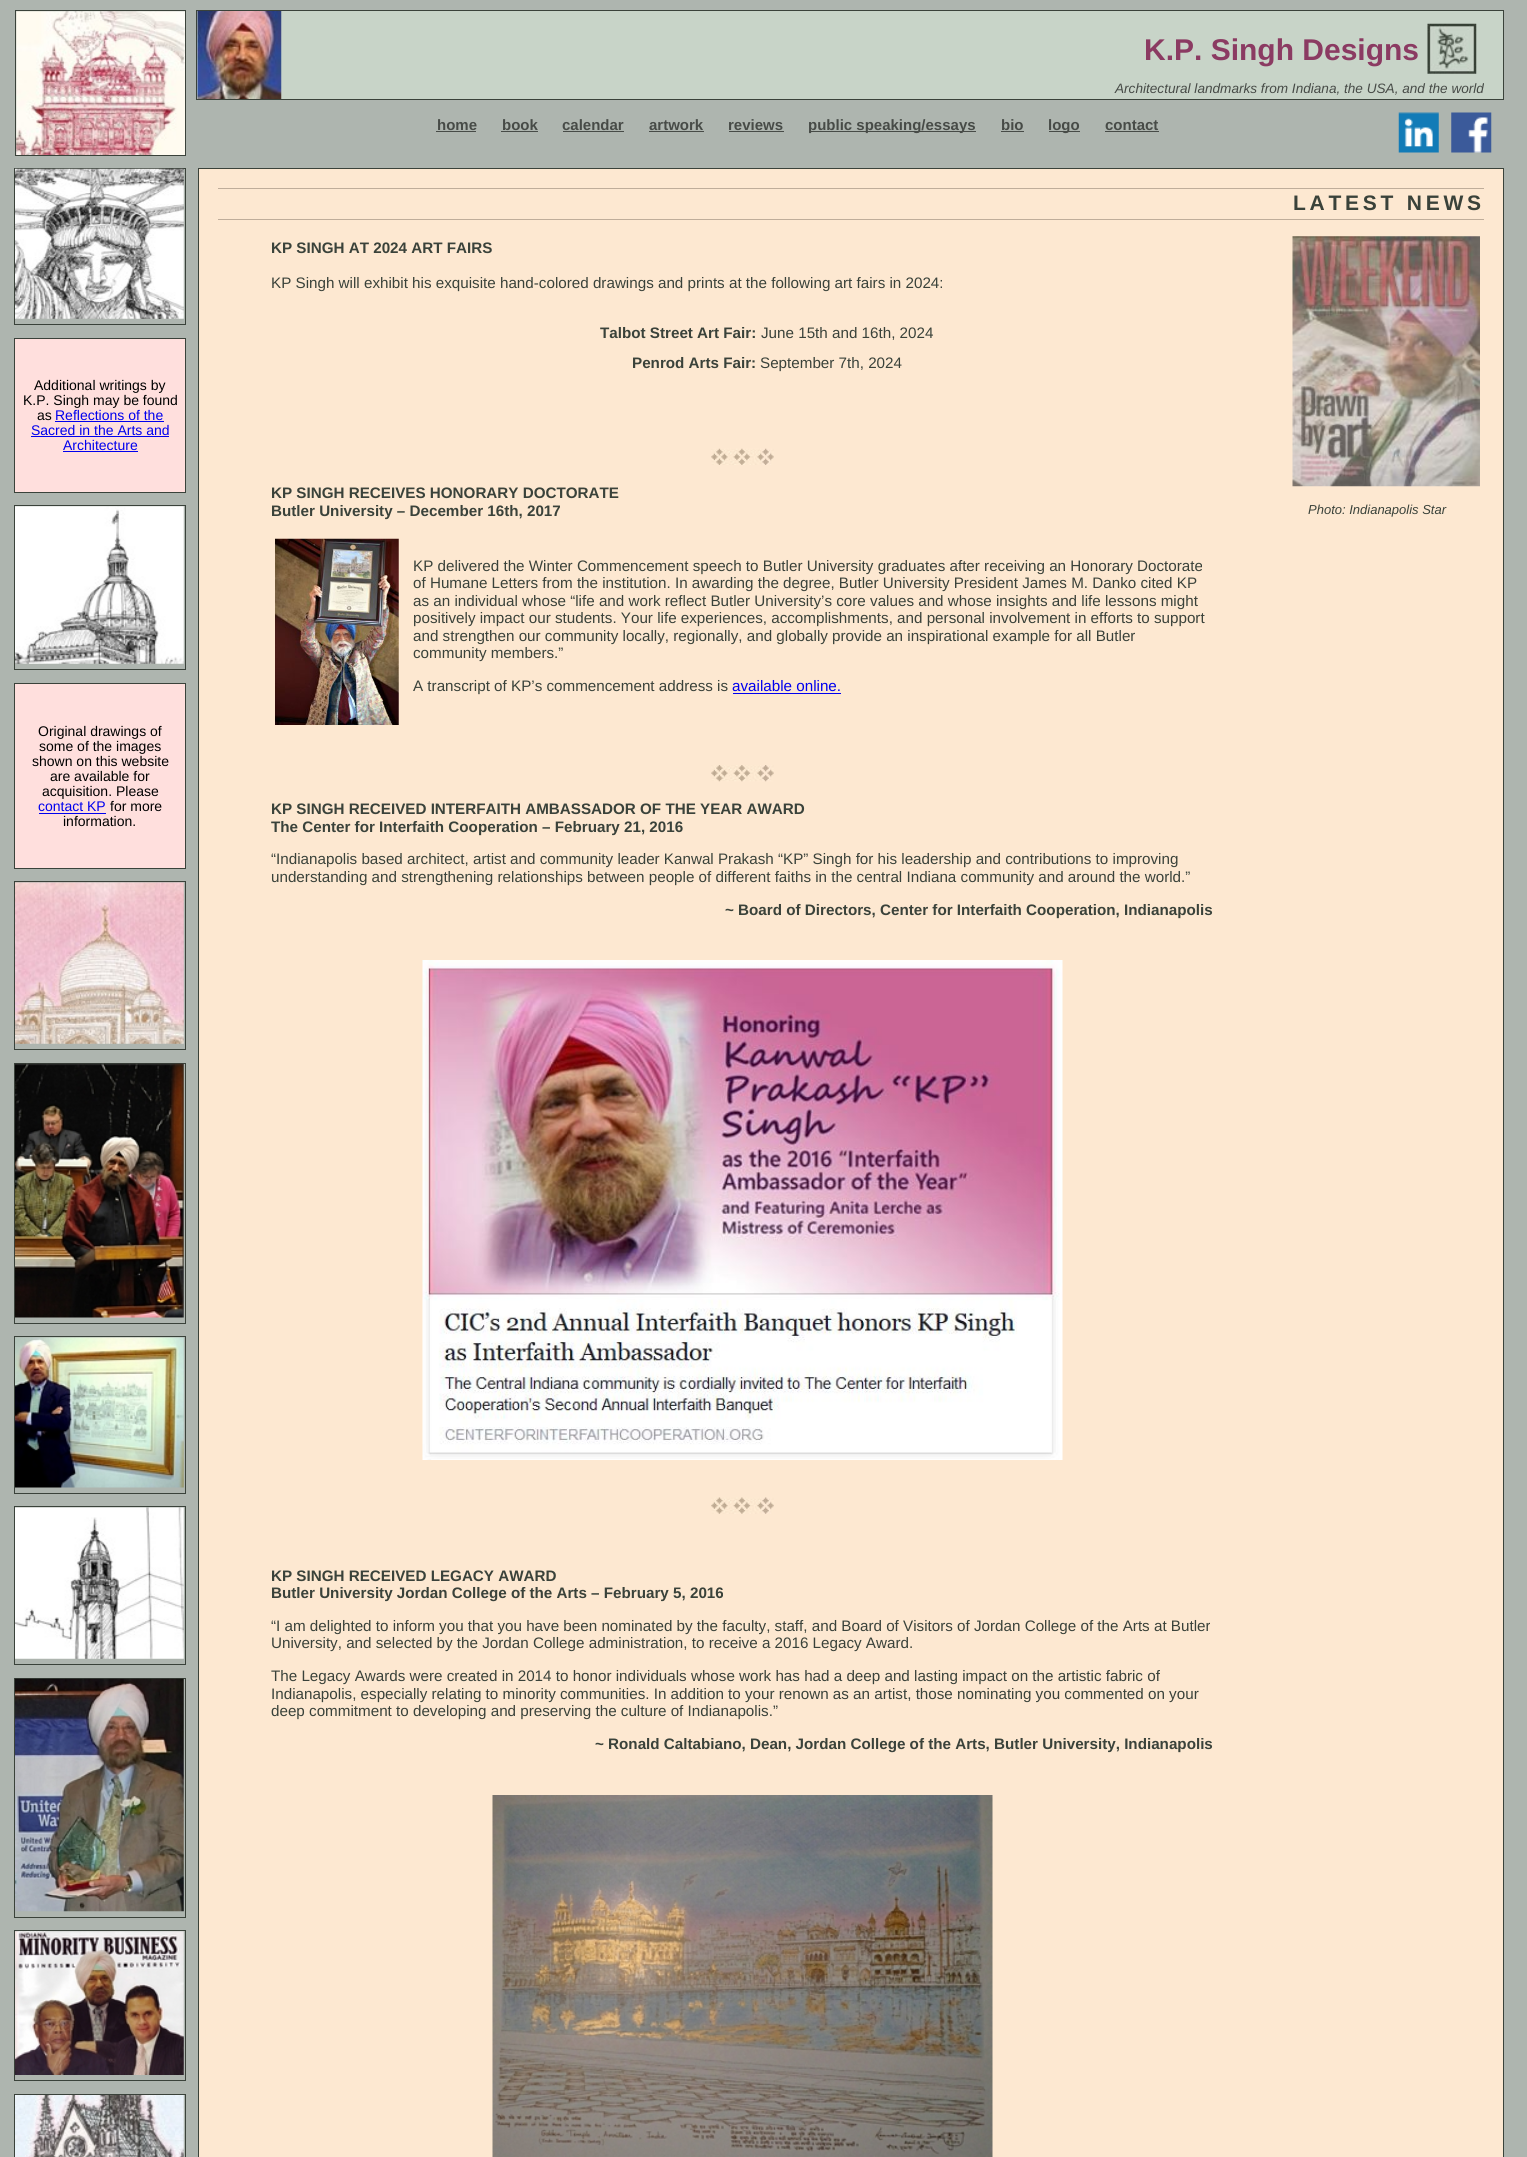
#include <cairo/cairo.h>
#include <math.h>
#include <stddef.h>

static cairo_t *cr;

static void use_color(int r, int g, int b) {
  cairo_set_source_rgb(cr, r / 255.0, g / 255.0, b / 255.0);
}

static void text(double x, double y, const char *s, const char *family, double size, int italic, int bold, int r, int g, int b) {
  cairo_select_font_face(cr, family, italic ? CAIRO_FONT_SLANT_ITALIC : CAIRO_FONT_SLANT_NORMAL,
    bold ? CAIRO_FONT_WEIGHT_BOLD : CAIRO_FONT_WEIGHT_NORMAL);
  cairo_set_font_size(cr, size);
  use_color(r, g, b);
  cairo_move_to(cr, x, y);
  cairo_show_text(cr, s);
}

static void spaced_text(double x, double y, const char *s, double letter, double word) {
  cairo_move_to(cr, x, y);
  while (*s) {
    char ch[5] = {0};
    int n = 0;
    do ch[n++] = *s++; while ((*s & 0xC0) == 0x80);
    cairo_show_text(cr, ch);
    cairo_rel_move_to(cr, letter + word * (*ch == ' '), 0);
  }
}

static void box(double x, double y, double w, double h, int r, int g, int b) {
  use_color(r, g, b);
  cairo_rectangle(cr, x, y, w, h);
  cairo_fill(cr);
}

static void picture(const char *path, double x, double y, double w, double h) {
  cairo_surface_t *image = cairo_image_surface_create_from_png(path);
  cairo_save(cr);
  cairo_set_source_surface(cr, image, x, y);
  cairo_rectangle(cr, x, y, w, h);
  cairo_fill(cr);
  cairo_restore(cr);
  cairo_surface_destroy(image);
}

static void draw(void) {
  use_color(174, 181, 175);
  cairo_paint(cr);
  cairo_rectangle(cr, 15.5, 10.5, 170, 145);
  use_color(58, 66, 58);
  cairo_set_line_width(cr, 1);
  cairo_stroke(cr);
  picture("img_01.png", 16, 11, 169, 144);
  box(197, 11, 1306, 88, 200, 212, 200);
  picture("img_02.png", 197, 11, 85, 88);
  cairo_rectangle(cr, 196.5, 10.5, 1307, 89);
  use_color(58, 66, 58);
  cairo_stroke(cr);
  picture("img_03.png", 1427, 23, 50, 51);
  box(436, 131, 40, 1, 71, 75, 71);
  box(501, 131, 37, 1, 71, 75, 71);
  box(563, 131, 61, 1, 71, 75, 71);
  box(649, 131, 55, 1, 71, 75, 71);
  box(729, 131, 55, 1, 71, 75, 71);
  box(809, 131, 167, 1, 71, 75, 71);
  box(1001, 131, 23, 1, 71, 75, 71);
  box(1049, 131, 31, 1, 71, 75, 71);
  box(1105, 131, 54, 1, 71, 75, 71);
  picture("img_04.png", 1398, 112, 41, 41);
  picture("img_05.png", 1451, 112, 41, 41);
  cairo_rectangle(cr, 14.5, 168.5, 171, 156);
  use_color(58, 66, 58);
  cairo_stroke(cr);
  picture("img_06.png", 15, 168, 169, 151);
  use_color(255, 223, 221);
  cairo_rectangle(cr, 14.5, 338.5, 171, 154);
  cairo_fill_preserve(cr);
  use_color(58, 66, 58);
  cairo_stroke(cr);
  box(55, 421, 109, 1, 0, 0, 238);
  box(31, 436, 138, 1, 0, 0, 238);
  box(63, 451, 75, 1, 0, 0, 238);
  cairo_rectangle(cr, 14.5, 505.5, 171, 164);
  use_color(58, 66, 58);
  cairo_stroke(cr);
  picture("img_07.png", 15, 506, 169, 158);
  use_color(255, 223, 221);
  cairo_rectangle(cr, 14.5, 683.5, 171, 185);
  cairo_fill_preserve(cr);
  use_color(58, 66, 58);
  cairo_stroke(cr);
  box(39, 813, 67, 1, 0, 0, 238);
  cairo_rectangle(cr, 14.5, 881.5, 171, 168);
  use_color(58, 66, 58);
  cairo_stroke(cr);
  picture("img_08.png", 15, 882, 169, 162);
  cairo_rectangle(cr, 14.5, 1063.5, 171, 260);
  cairo_stroke(cr);
  picture("img_09.png", 15, 1063, 169, 255);
  cairo_rectangle(cr, 14.5, 1336.5, 171, 157);
  cairo_stroke(cr);
  picture("img_10.png", 15, 1337, 169, 151);
  cairo_rectangle(cr, 14.5, 1506.5, 171, 158);
  cairo_stroke(cr);
  picture("img_11.png", 15, 1507, 169, 152);
  cairo_rectangle(cr, 14.5, 1678.5, 171, 239);
  cairo_stroke(cr);
  picture("img_12.png", 15, 1678, 169, 234);
  cairo_rectangle(cr, 14.5, 1930.5, 171, 150);
  cairo_stroke(cr);
  picture("img_13.png", 15, 1931, 169, 144);
  cairo_rectangle(cr, 14.5, 2094.5, 171, 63);
  cairo_stroke(cr);
  picture("img_14.png", 15, 2095, 169, 62);
  use_color(253, 232, 209);
  cairo_rectangle(cr, 198.5, 168.5, 1305, 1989);
  cairo_fill_preserve(cr);
  use_color(58, 66, 58);
  cairo_stroke(cr);
  box(218, 188, 1266, 1, 191, 173, 154);
  box(218, 219, 1266, 1, 191, 173, 154);
  picture("img_15.png", 711, 448, 63, 17);
  picture("img_16.png", 275, 538, 124, 187);
  box(733, 693, 108, 1, 0, 0, 238);
  picture("img_17.png", 711, 765, 63, 17);
  picture("img_18.png", 422, 960, 641, 500);
  picture("img_19.png", 711, 1497, 63, 17);
  picture("img_20.png", 492, 1795, 501, 362);
  picture("img_21.png", 1292, 236, 188, 251);
  text(1144, 60, "K.P. Singh Designs", "Liberation Sans", 30, 0, 1, 139, 58, 98);
  text(1115, 93, "Architectural landmarks from Indiana, the USA, and the world", "Liberation Sans", 13.6, 1, 0, 71, 75, 71);
  text(437, 130, "home", "Liberation Sans", 15, 0, 1, 71, 75, 71);
  text(502, 130, "book", "Liberation Sans", 15, 0, 1, 71, 75, 71);
  text(562, 130, "calendar", "Liberation Sans", 15, 0, 1, 71, 75, 71);
  text(649, 130, "artwork", "Liberation Sans", 15, 0, 1, 71, 75, 71);
  text(728, 130, "reviews", "Liberation Sans", 15, 0, 1, 71, 75, 71);
  text(808, 130, "public speaking/essays", "Liberation Sans", 15, 0, 1, 71, 75, 71);
  text(1001, 130, "bio", "Liberation Sans", 15, 0, 1, 71, 75, 71);
  text(1048, 130, "logo", "Liberation Sans", 15, 0, 1, 71, 75, 71);
  text(1105, 130, "contact", "Liberation Sans", 15, 0, 1, 71, 75, 71);
  text(34, 390, "Additional writings by", "Liberation Sans", 14, 0, 0, 0, 0, 0);
  text(23, 405, "K.P. Singh may be found", "Liberation Sans", 14, 0, 0, 0, 0, 0);
  text(37, 420, "as", "Liberation Sans", 14, 0, 0, 0, 0, 0);
  text(55, 420, "Reflections of the", "Liberation Sans", 14, 0, 0, 0, 0, 238);
  text(31, 435, "Sacred in the Arts and", "Liberation Sans", 14, 0, 0, 0, 0, 238);
  text(63, 450, "Architecture", "Liberation Sans", 14, 0, 0, 0, 0, 238);
  text(38, 736, "Original drawings of", "Liberation Sans", 14, 0, 0, 0, 0, 0);
  text(39, 751, "some of the images", "Liberation Sans", 14, 0, 0, 0, 0, 0);
  text(32, 766, "shown on this website", "Liberation Sans", 14, 0, 0, 0, 0, 0);
  text(50, 781, "are available for", "Liberation Sans", 14, 0, 0, 0, 0, 0);
  text(42, 796, "acquisition. Please", "Liberation Sans", 14, 0, 0, 0, 0, 0);
  text(38, 811, "contact KP", "Liberation Sans", 14, 0, 0, 0, 0, 238);
  text(110, 811, "for more", "Liberation Sans", 14, 0, 0, 0, 0, 0);
  text(63, 826, "information.", "Liberation Sans", 14, 0, 0, 0, 0, 0);
  cairo_select_font_face(cr, "Liberation Sans", CAIRO_FONT_SLANT_NORMAL, CAIRO_FONT_WEIGHT_BOLD);
  cairo_set_font_size(cr, 21);
  use_color(58, 66, 58);
  spaced_text(1293, 210, "LATEST NEWS", 3.75, 0);
  text(271, 253, "KP SINGH AT 2024 ART FAIRS", "Liberation Sans", 15.2, 0, 1, 58, 66, 58);
  text(271, 288, "KP Singh will exhibit his exquisite hand-colored drawings and prints at the following art fairs in 2024:", "Liberation Sans", 15.2, 0, 0, 58, 66, 58);
  text(600, 338, "Talbot Street Art Fair:", "Liberation Sans", 15.2, 0, 1, 58, 66, 58);
  text(761, 338, "June 15th and 16th, 2024", "Liberation Sans", 15.2, 0, 0, 58, 66, 58);
  text(632, 368, "Penrod Arts Fair:", "Liberation Sans", 15.2, 0, 1, 58, 66, 58);
  text(760, 368, "September 7th, 2024", "Liberation Sans", 15.2, 0, 0, 58, 66, 58);
  text(271, 498, "KP SINGH RECEIVES HONORARY DOCTORATE", "Liberation Sans", 15.2, 0, 1, 58, 66, 58);
  text(271, 516, "Butler University – December 16th, 2017", "Liberation Sans", 15.2, 0, 1, 58, 66, 58);
  text(413, 571, "KP delivered the Winter Commencement speech to Butler University graduates after receiving an Honorary Doctorate", "Liberation Sans", 15.2, 0, 0, 58, 66, 58);
  text(413, 588, "of Humane Letters from the institution. In awarding the degree, Butler University President James M. Danko cited KP", "Liberation Sans", 15.2, 0, 0, 58, 66, 58);
  text(413, 606, "as an individual whose “life and work reflect Butler University’s core values and whose insights and life lessons might", "Liberation Sans", 15.2, 0, 0, 58, 66, 58);
  text(413, 623, "positively impact our students. Your life experiences, accomplishments, and personal involvement in efforts to support", "Liberation Sans", 15.2, 0, 0, 58, 66, 58);
  text(413, 641, "and strengthen our community locally, regionally, and globally provide an inspirational example for all Butler", "Liberation Sans", 15.2, 0, 0, 58, 66, 58);
  text(413, 658, "community members.”", "Liberation Sans", 15.2, 0, 0, 58, 66, 58);
  text(413, 691, "A transcript of KP’s commencement address is", "Liberation Sans", 15.2, 0, 0, 58, 66, 58);
  text(732, 691, "available online.", "Liberation Sans", 15.2, 0, 0, 0, 0, 238);
  text(271, 814, "KP SINGH RECEIVED INTERFAITH AMBASSADOR OF THE YEAR AWARD", "Liberation Sans", 15.2, 0, 1, 58, 66, 58);
  text(271, 832, "The Center for Interfaith Cooperation – February 21, 2016", "Liberation Sans", 15.2, 0, 1, 58, 66, 58);
  text(271, 864, "“Indianapolis based architect, artist and community leader Kanwal Prakash “KP” Singh for his leadership and contributions to improving", "Liberation Sans", 15.2, 0, 0, 58, 66, 58);
  text(271, 882, "understanding and strengthening relationships between people of different faiths in the central Indiana community and around the world.”", "Liberation Sans", 15.2, 0, 0, 58, 66, 58);
  text(725, 915, "~ Board of Directors, Center for Interfaith Cooperation, Indianapolis", "Liberation Sans", 15.2, 0, 1, 58, 66, 58);
  text(271, 1581, "KP SINGH RECEIVED LEGACY AWARD", "Liberation Sans", 15.2, 0, 1, 58, 66, 58);
  text(271, 1598, "Butler University Jordan College of the Arts – February 5, 2016", "Liberation Sans", 15.2, 0, 1, 58, 66, 58);
  text(271, 1631, "“I am delighted to inform you that you have been nominated by the faculty, staff, and Board of Visitors of Jordan College of the Arts at Butler", "Liberation Sans", 15.2, 0, 0, 58, 66, 58);
  text(271, 1648, "University, and selected by the Jordan College administration, to receive a 2016 Legacy Award.", "Liberation Sans", 15.2, 0, 0, 58, 66, 58);
  text(271, 1681, "The Legacy Awards were created in 2014 to honor individuals whose work has had a deep and lasting impact on the artistic fabric of", "Liberation Sans", 15.2, 0, 0, 58, 66, 58);
  text(271, 1699, "Indianapolis, especially relating to minority communities. In addition to your renown as an artist, those nominating you commented on your", "Liberation Sans", 15.2, 0, 0, 58, 66, 58);
  text(271, 1716, "deep commitment to developing and preserving the culture of Indianapolis.”", "Liberation Sans", 15.2, 0, 0, 58, 66, 58);
  text(595, 1749, "~ Ronald Caltabiano, Dean, Jordan College of the Arts, Butler University, Indianapolis", "Liberation Sans", 15.2, 0, 1, 58, 66, 58);
  text(1308, 514, "Photo: Indianapolis Star", "Liberation Sans", 13, 1, 0, 58, 66, 58);
}

int main(void) {
  cairo_surface_t *surface = cairo_image_surface_create(CAIRO_FORMAT_RGB24, 1527, 2157);
  cr = cairo_create(surface);
  cairo_font_options_t *options = cairo_font_options_create();
  cairo_font_options_set_hint_metrics(options, CAIRO_HINT_METRICS_OFF);
  cairo_font_options_set_hint_style(options, CAIRO_HINT_STYLE_NONE);
  cairo_set_font_options(cr, options);
  cairo_set_miter_limit(cr, 4);
  draw();
  cairo_surface_write_to_png(surface, "out.png");
  cairo_font_options_destroy(options);
  cairo_destroy(cr);
  cairo_surface_destroy(surface);
  return 0;
}
